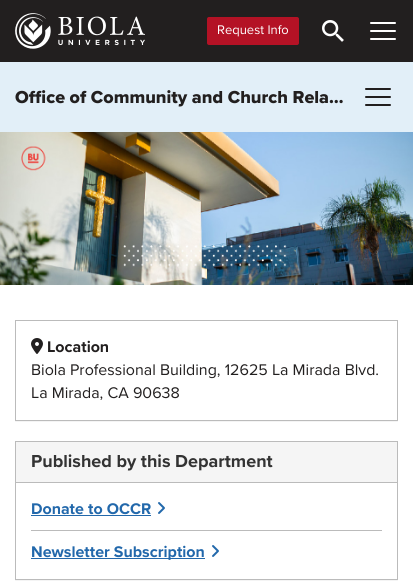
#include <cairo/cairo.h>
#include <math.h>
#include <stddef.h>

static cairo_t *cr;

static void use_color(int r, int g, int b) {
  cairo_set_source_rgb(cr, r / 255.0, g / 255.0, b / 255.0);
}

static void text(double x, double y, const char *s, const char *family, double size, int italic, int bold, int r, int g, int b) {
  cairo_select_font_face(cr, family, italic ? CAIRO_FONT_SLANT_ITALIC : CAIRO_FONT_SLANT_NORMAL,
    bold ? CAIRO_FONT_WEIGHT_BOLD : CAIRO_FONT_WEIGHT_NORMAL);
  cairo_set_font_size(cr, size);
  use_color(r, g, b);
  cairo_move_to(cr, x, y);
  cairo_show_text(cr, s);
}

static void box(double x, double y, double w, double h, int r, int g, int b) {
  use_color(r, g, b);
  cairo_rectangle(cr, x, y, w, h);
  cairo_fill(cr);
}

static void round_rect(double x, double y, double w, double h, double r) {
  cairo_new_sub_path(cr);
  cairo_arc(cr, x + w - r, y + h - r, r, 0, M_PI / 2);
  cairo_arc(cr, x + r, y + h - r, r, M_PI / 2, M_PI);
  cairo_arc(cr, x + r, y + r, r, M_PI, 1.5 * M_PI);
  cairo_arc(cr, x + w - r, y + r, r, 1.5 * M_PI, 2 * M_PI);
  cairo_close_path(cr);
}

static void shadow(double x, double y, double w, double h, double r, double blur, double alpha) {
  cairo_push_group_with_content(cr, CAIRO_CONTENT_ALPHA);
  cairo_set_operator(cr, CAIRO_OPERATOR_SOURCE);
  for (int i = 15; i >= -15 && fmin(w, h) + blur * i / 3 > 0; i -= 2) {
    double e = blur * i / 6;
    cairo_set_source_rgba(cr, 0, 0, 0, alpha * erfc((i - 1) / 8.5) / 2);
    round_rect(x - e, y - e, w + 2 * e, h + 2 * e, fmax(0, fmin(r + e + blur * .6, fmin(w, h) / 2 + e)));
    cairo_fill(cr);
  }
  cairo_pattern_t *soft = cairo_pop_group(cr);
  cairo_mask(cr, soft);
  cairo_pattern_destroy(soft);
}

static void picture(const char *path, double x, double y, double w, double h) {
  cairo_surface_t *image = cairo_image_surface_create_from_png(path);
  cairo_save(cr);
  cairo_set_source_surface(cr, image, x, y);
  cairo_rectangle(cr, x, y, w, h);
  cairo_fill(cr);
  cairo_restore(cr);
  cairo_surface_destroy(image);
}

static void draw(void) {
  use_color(255, 255, 255);
  cairo_paint(cr);
  box(0, 0, 413, 62, 34, 31, 31);
  picture("img_01.png", 15, 13, 130, 36);
  use_color(180, 18, 37);
  round_rect(207, 17, 92, 28, 2);
  cairo_fill(cr);
  picture("img_02.png", 322, 20, 22, 22);
  use_color(255, 255, 255);
  round_rect(370, 30, 26, 2, 1);
  cairo_fill(cr);
  round_rect(370, 22, 26, 2, 1);
  cairo_fill(cr);
  round_rect(370, 38, 26, 2, 1);
  cairo_fill(cr);
  box(0, 62, 413, 70, 226, 239, 248);
  use_color(34, 31, 31);
  round_rect(365, 96, 26, 2, 1);
  cairo_fill(cr);
  round_rect(365, 88, 26, 2, 1);
  cairo_fill(cr);
  round_rect(365, 104, 26, 2, 1);
  cairo_fill(cr);
  picture("img_03.png", 0, 132, 413, 153);
  cairo_save(cr);
  cairo_rectangle(cr, 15, 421, 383, 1);
  cairo_clip(cr);
  use_color(0, 0, 0);
  shadow(15, 321, 383, 101, 0, 0.5, 0.05);
  cairo_restore(cr);
  cairo_rectangle(cr, 15.5, 320.5, 382, 100);
  use_color(187, 187, 187);
  cairo_set_line_width(cr, 1);
  cairo_stroke(cr);
  picture("img_04.png", 31, 338, 12, 16);
  cairo_save(cr);
  cairo_rectangle(cr, 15, 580, 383, 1);
  cairo_clip(cr);
  use_color(0, 0, 0);
  shadow(15, 442, 383, 139, 0, 0.5, 0.05);
  cairo_restore(cr);
  cairo_rectangle(cr, 15.5, 441.5, 382, 138);
  cairo_stroke(cr);
  box(16, 442, 381, 40, 245, 245, 245);
  box(16, 482, 381, 1, 187, 187, 187);
  box(31, 515, 120, 1, 34, 104, 171);
  picture("img_05.png", 158, 502, 7, 12);
  box(31, 530, 351, 1, 187, 187, 187);
  box(31, 558, 174, 1, 34, 104, 171);
  picture("img_05.png", 212, 545, 7, 12);
  text(217, 34, "Request Info", "Proxima Nova", 13, 0, 0, 255, 255, 255);
  text(15, 103, "Office of Community and Church Rela…", "Proxima Nova ExtraBold", 18, 0, 0, 34, 31, 31);
  text(47, 352, "Location", "Proxima Nova", 16, 0, 1, 34, 31, 31);
  text(31, 375, "Biola Professional Building, 12625 La Mirada Blvd.", "Proxima Nova", 16, 0, 0, 34, 31, 31);
  text(31, 398, "La Mirada, CA 90638", "Proxima Nova", 16, 0, 0, 34, 31, 31);
  text(31, 467, "Published by this Department", "Proxima Nova", 18, 0, 1, 51, 51, 51);
  text(31, 514, "Donate to OCCR", "Proxima Nova", 16, 0, 1, 34, 104, 171);
  text(31, 557, "Newsletter Subscription", "Proxima Nova", 16, 0, 1, 34, 104, 171);
}

int main(void) {
  cairo_surface_t *surface = cairo_image_surface_create(CAIRO_FORMAT_RGB24, 413, 585);
  cr = cairo_create(surface);
  cairo_font_options_t *options = cairo_font_options_create();
  cairo_font_options_set_hint_metrics(options, CAIRO_HINT_METRICS_OFF);
  cairo_font_options_set_hint_style(options, CAIRO_HINT_STYLE_NONE);
  cairo_set_font_options(cr, options);
  cairo_set_miter_limit(cr, 4);
  draw();
  cairo_surface_write_to_png(surface, "out.png");
  cairo_font_options_destroy(options);
  cairo_destroy(cr);
  cairo_surface_destroy(surface);
  return 0;
}
